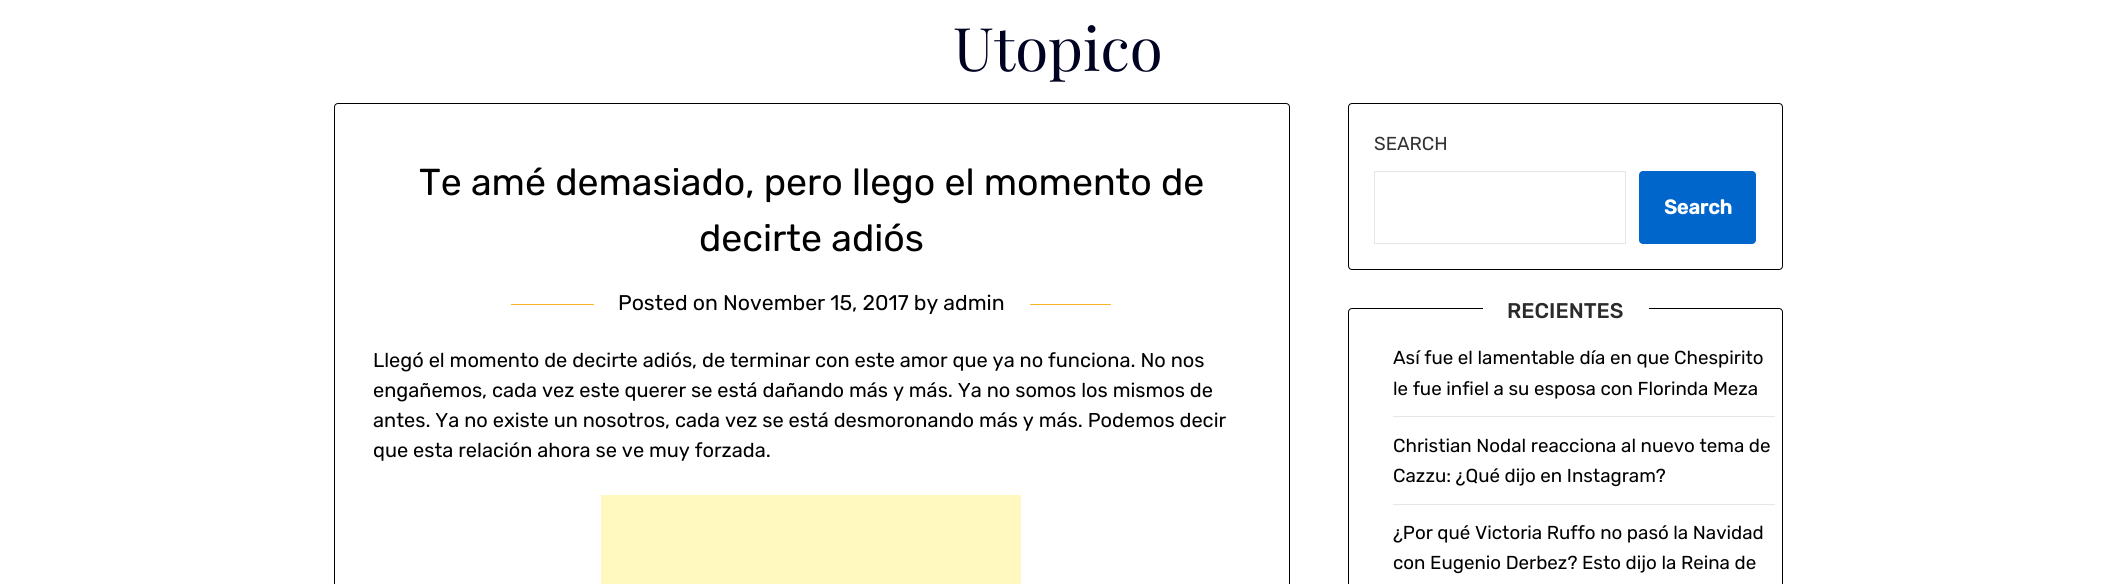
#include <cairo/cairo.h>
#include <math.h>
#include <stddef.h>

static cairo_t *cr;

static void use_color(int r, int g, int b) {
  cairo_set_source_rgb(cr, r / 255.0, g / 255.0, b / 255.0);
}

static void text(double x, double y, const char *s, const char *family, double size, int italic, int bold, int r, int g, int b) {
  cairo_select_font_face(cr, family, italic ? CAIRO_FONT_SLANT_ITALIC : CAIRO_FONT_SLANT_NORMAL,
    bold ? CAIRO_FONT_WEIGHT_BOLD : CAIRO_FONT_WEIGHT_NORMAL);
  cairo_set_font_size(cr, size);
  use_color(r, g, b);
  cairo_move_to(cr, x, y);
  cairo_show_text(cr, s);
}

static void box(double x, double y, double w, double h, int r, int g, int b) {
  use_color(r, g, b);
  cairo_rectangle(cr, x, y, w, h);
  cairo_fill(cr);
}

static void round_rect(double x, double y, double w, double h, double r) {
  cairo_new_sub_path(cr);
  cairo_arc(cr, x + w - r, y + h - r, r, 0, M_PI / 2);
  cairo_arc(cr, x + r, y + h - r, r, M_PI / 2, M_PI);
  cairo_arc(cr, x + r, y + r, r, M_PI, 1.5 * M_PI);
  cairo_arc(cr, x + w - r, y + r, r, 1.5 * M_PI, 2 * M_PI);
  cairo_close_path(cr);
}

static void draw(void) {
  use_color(255, 255, 255);
  cairo_paint(cr);
  round_rect(334.5, 103.5, 955, 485, 3.5);
  use_color(0, 0, 0);
  cairo_set_line_width(cr, 1);
  cairo_stroke(cr);
  box(511, 304, 600, 1, 250, 181, 38);
  box(594, 304, 436, 1, 255, 255, 255);
  box(601, 495, 420, 89, 255, 249, 192);
  round_rect(1348.5, 103.5, 434, 166, 3.5);
  use_color(0, 0, 0);
  cairo_stroke(cr);
  cairo_rectangle(cr, 1374.5, 171.5, 251, 72);
  use_color(229, 230, 233);
  cairo_stroke(cr);
  use_color(0, 102, 204);
  round_rect(1639, 171, 117, 73, 4);
  cairo_fill(cr);
  round_rect(1348.5, 308.5, 434, 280, 3.5);
  use_color(0, 0, 0);
  cairo_stroke(cr);
  box(1483, 308, 166, 1, 255, 255, 255);
  box(1393, 416, 382, 1, 230, 230, 230);
  box(1393, 504, 382, 1, 230, 230, 230);
  text(953, 71, "Utopico", "Playfair Display", 60, 0, 0, 0, 2, 34);
  text(419, 195, "Te amé demasiado, pero llego el momento de", "Rubik", 37.5, 0, 0, 0, 0, 0);
  text(699, 251, "decirte adiós", "Rubik", 37.5, 0, 0, 0, 0, 0);
  text(618, 310, "Posted on November 15, 2017 by admin", "Rubik", 21.25, 0, 0, 0, 0, 0);
  text(373, 367, "Llegó el momento de decirte adiós, de terminar con este amor que ya no funciona. No nos", "Rubik", 20, 0, 0, 0, 0, 0);
  text(373, 397, "engañemos, cada vez este querer se está dañando más y más. Ya no somos los mismos de", "Rubik", 20, 0, 0, 0, 0, 0);
  text(373, 427, "antes. Ya no existe un nosotros, cada vez se está desmoronando más y más. Podemos decir", "Rubik", 20, 0, 0, 0, 0, 0);
  text(373, 457, "que esta relación ahora se ve muy forzada.", "Rubik", 20, 0, 0, 0, 0, 0);
  text(1374, 150, "SEARCH", "Rubik", 18.75, 0, 0, 51, 51, 51);
  text(1664, 214, "Search", "Rubik", 20, 0, 1, 255, 255, 255);
  text(1507, 318, "RECIENTES", "Rubik Medium", 21.25, 0, 0, 43, 43, 43);
  text(1393, 364, "Así fue el lamentable día en que Chespirito", "Rubik", 18.75, 0, 0, 0, 0, 0);
  text(1393, 395, "le fue infiel a su esposa con Florinda Meza", "Rubik", 18.75, 0, 0, 0, 0, 0);
  text(1393, 452, "Christian Nodal reacciona al nuevo tema de", "Rubik", 18.75, 0, 0, 0, 0, 0);
  text(1393, 482, "Cazzu: ¿Qué dijo en Instagram?", "Rubik", 18.75, 0, 0, 0, 0, 0);
  text(1393, 539, "¿Por qué Victoria Ruffo no pasó la Navidad", "Rubik", 18.75, 0, 0, 0, 0, 0);
  text(1393, 569, "con Eugenio Derbez? Esto dijo la Reina de", "Rubik", 18.75, 0, 0, 0, 0, 0);
}

int main(void) {
  cairo_surface_t *surface = cairo_image_surface_create(CAIRO_FORMAT_RGB24, 2116, 584);
  cr = cairo_create(surface);
  cairo_font_options_t *options = cairo_font_options_create();
  cairo_font_options_set_hint_metrics(options, CAIRO_HINT_METRICS_OFF);
  cairo_font_options_set_hint_style(options, CAIRO_HINT_STYLE_NONE);
  cairo_set_font_options(cr, options);
  cairo_set_miter_limit(cr, 4);
  draw();
  cairo_surface_write_to_png(surface, "out.png");
  cairo_font_options_destroy(options);
  cairo_destroy(cr);
  cairo_surface_destroy(surface);
  return 0;
}
